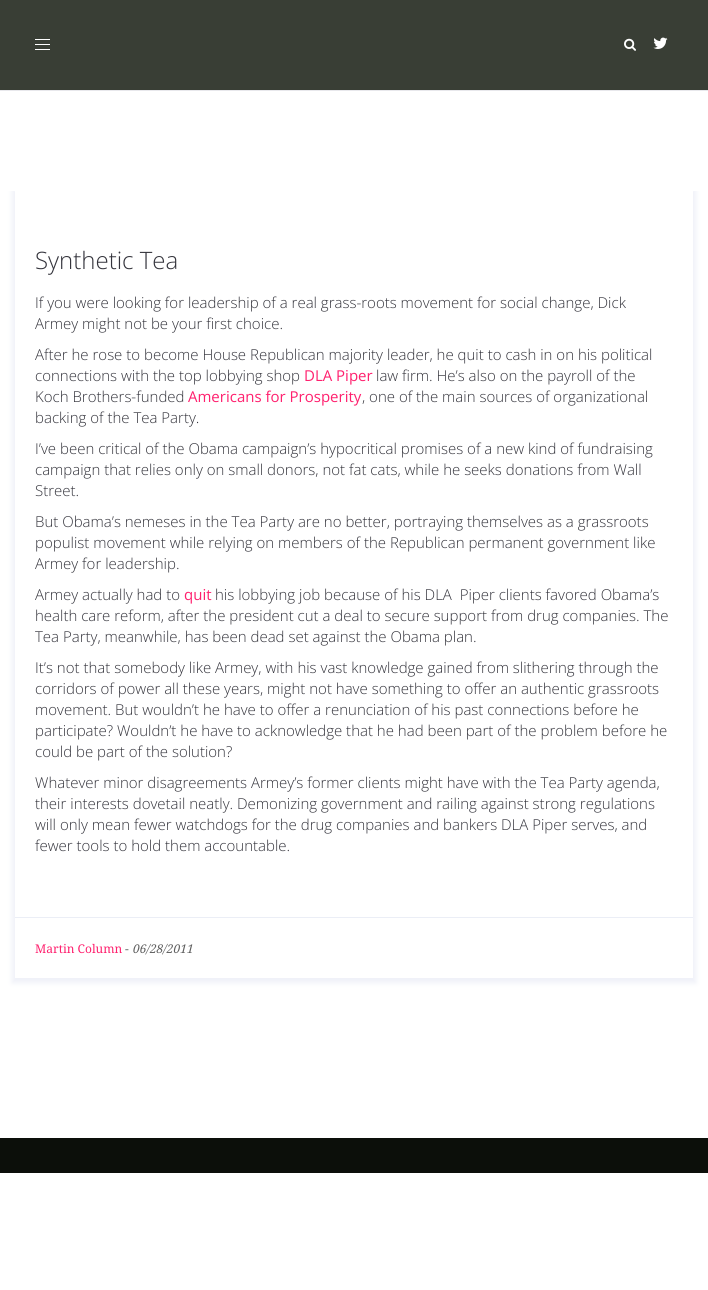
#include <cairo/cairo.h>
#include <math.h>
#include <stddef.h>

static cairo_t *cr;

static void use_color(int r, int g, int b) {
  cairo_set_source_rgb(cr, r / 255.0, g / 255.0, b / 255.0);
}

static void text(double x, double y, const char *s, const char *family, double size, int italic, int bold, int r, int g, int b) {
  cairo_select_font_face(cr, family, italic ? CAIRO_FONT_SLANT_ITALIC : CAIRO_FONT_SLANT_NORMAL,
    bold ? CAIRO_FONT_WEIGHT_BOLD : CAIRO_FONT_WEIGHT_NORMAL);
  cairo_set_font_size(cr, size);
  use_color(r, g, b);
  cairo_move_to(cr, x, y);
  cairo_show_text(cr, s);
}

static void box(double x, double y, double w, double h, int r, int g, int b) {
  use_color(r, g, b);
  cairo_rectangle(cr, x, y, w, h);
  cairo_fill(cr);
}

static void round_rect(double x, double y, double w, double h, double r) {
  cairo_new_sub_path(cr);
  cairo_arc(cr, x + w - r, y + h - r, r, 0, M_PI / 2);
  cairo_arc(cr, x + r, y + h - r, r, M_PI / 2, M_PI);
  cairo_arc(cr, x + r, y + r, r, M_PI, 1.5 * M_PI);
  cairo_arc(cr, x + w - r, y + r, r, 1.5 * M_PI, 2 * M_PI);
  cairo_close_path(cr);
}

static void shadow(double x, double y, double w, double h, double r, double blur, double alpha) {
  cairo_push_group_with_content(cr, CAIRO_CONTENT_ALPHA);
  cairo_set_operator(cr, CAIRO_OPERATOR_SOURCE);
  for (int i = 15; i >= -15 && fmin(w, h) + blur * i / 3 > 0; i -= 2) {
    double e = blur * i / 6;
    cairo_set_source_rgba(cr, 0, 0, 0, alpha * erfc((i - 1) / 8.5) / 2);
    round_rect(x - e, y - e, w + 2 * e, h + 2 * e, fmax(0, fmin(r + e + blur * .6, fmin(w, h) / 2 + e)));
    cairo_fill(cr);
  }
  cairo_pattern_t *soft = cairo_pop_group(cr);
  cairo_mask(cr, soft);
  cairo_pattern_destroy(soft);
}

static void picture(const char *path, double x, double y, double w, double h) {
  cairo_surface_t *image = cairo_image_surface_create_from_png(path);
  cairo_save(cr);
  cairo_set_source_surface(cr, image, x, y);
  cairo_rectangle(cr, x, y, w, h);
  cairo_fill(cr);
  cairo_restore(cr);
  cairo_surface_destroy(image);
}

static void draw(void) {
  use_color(255, 255, 255);
  cairo_paint(cr);
  box(0, 90, 708, 1, 232, 232, 236);
  box(0, 0, 708, 90, 57, 62, 53);
  box(35, 49, 15, 1, 255, 255, 255);
  box(35, 39, 15, 1, 255, 255, 255);
  box(35, 44, 15, 1, 255, 255, 255);
  picture("img_01.png", 624, 38, 12, 13);
  picture("img_02.png", 653, 37, 15, 12);
  cairo_save(cr);
  cairo_rectangle(cr, 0, 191, 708, 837);
  cairo_clip(cr);
  cairo_set_fill_rule(cr, CAIRO_FILL_RULE_EVEN_ODD);
  cairo_new_path(cr);
  cairo_move_to(cr, 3, 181);
  cairo_line_to(cr, 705, 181);
  cairo_line_to(cr, 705, 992);
  cairo_line_to(cr, 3, 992);
  cairo_close_path(cr);
  cairo_move_to(cr, 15, 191);
  cairo_line_to(cr, 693, 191);
  cairo_line_to(cr, 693, 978);
  cairo_line_to(cr, 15, 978);
  cairo_close_path(cr);
  cairo_clip(cr);
  use_color(239, 241, 248);
  shadow(12, 190, 684, 793, 0, 2.5, 1);
  cairo_restore(cr);
  box(15, 917, 678, 1, 235, 238, 246);
  box(0, 1138, 708, 35, 12, 15, 10);
  text(35, 269, "Synthetic Tea", "Open Sans Light", 24, 0, 0, 52, 52, 60);
  text(35, 308, "If you were looking for leadership of a real grass-roots movement for social change, Dick", "Open Sans Light", 15, 0, 0, 52, 52, 60);
  text(35, 329, "Armey might not be your first choice.", "Open Sans Light", 15, 0, 0, 52, 52, 60);
  text(35, 360, "After he rose to become House Republican majority leader, he quit to cash in on his political", "Open Sans Light", 15, 0, 0, 52, 52, 60);
  text(35, 381, "connections with the top lobbying shop", "Open Sans Light", 15, 0, 0, 52, 52, 60);
  text(304, 381, "DLA Piper", "Open Sans", 15, 0, 0, 255, 32, 110);
  text(376, 381, "law firm. He’s also on the payroll of the", "Open Sans Light", 15, 0, 0, 52, 52, 60);
  text(35, 402, "Koch Brothers-funded", "Open Sans Light", 15, 0, 0, 52, 52, 60);
  text(188, 402, "Americans for Prosperity", "Open Sans", 15, 0, 0, 255, 32, 110);
  text(362, 402, ", one of the main sources of organizational", "Open Sans Light", 15, 0, 0, 52, 52, 60);
  text(35, 423, "backing of the Tea Party.", "Open Sans Light", 15, 0, 0, 52, 52, 60);
  text(35, 454, "I’ve been critical of the Obama campaign’s hypocritical promises of a new kind of fundraising", "Open Sans Light", 15, 0, 0, 52, 52, 60);
  text(35, 475, "campaign that relies only on small donors, not fat cats, while he seeks donations from Wall", "Open Sans Light", 15, 0, 0, 52, 52, 60);
  text(35, 496, "Street.", "Open Sans Light", 15, 0, 0, 52, 52, 60);
  text(35, 527, "But Obama’s nemeses in the Tea Party are no better, portraying themselves as a grassroots", "Open Sans Light", 15, 0, 0, 52, 52, 60);
  text(35, 548, "populist movement while relying on members of the Republican permanent government like", "Open Sans Light", 15, 0, 0, 52, 52, 60);
  text(35, 569, "Armey for leadership.", "Open Sans Light", 15, 0, 0, 52, 52, 60);
  text(35, 600, "Armey actually had to", "Open Sans Light", 15, 0, 0, 52, 52, 60);
  text(184, 600, "quit", "Open Sans", 15, 0, 0, 255, 32, 110);
  text(215, 600, "his lobbying job because of his DLA  Piper clients favored Obama’s", "Open Sans Light", 15, 0, 0, 52, 52, 60);
  text(35, 621, "health care reform, after the president cut a deal to secure support from drug companies. The", "Open Sans Light", 15, 0, 0, 52, 52, 60);
  text(35, 642, "Tea Party, meanwhile, has been dead set against the Obama plan.", "Open Sans Light", 15, 0, 0, 52, 52, 60);
  text(35, 673, "It’s not that somebody like Armey, with his vast knowledge gained from slithering through the", "Open Sans Light", 15, 0, 0, 52, 52, 60);
  text(35, 694, "corridors of power all these years, might not have something to offer an authentic grassroots", "Open Sans Light", 15, 0, 0, 52, 52, 60);
  text(35, 715, "movement. But wouldn’t he have to offer a renunciation of his past connections before he", "Open Sans Light", 15, 0, 0, 52, 52, 60);
  text(35, 736, "participate? Wouldn’t he have to acknowledge that he had been part of the problem before he", "Open Sans Light", 15, 0, 0, 52, 52, 60);
  text(35, 757, "could be part of the solution?", "Open Sans Light", 15, 0, 0, 52, 52, 60);
  text(35, 788, "Whatever minor disagreements Armey’s former clients might have with the Tea Party agenda,", "Open Sans Light", 15, 0, 0, 52, 52, 60);
  text(35, 809, "their interests dovetail neatly. Demonizing government and railing against strong regulations", "Open Sans Light", 15, 0, 0, 52, 52, 60);
  text(35, 830, "will only mean fewer watchdogs for the drug companies and bankers DLA Piper serves, and", "Open Sans Light", 15, 0, 0, 52, 52, 60);
  text(35, 851, "fewer tools to hold them accountable.", "Open Sans Light", 15, 0, 0, 52, 52, 60);
  text(35, 953, "Martin Column", "Droid Serif", 12, 0, 0, 255, 32, 110);
  text(125, 953, "-", "Droid Serif", 12, 0, 0, 96, 96, 96);
  text(132, 953, "06/28/2011", "Droid Serif", 12, 1, 0, 96, 96, 96);
}

int main(void) {
  cairo_surface_t *surface = cairo_image_surface_create(CAIRO_FORMAT_RGB24, 708, 1290);
  cr = cairo_create(surface);
  cairo_font_options_t *options = cairo_font_options_create();
  cairo_font_options_set_hint_metrics(options, CAIRO_HINT_METRICS_OFF);
  cairo_font_options_set_hint_style(options, CAIRO_HINT_STYLE_NONE);
  cairo_set_font_options(cr, options);
  cairo_set_miter_limit(cr, 4);
  draw();
  cairo_surface_write_to_png(surface, "out.png");
  cairo_font_options_destroy(options);
  cairo_destroy(cr);
  cairo_surface_destroy(surface);
  return 0;
}
